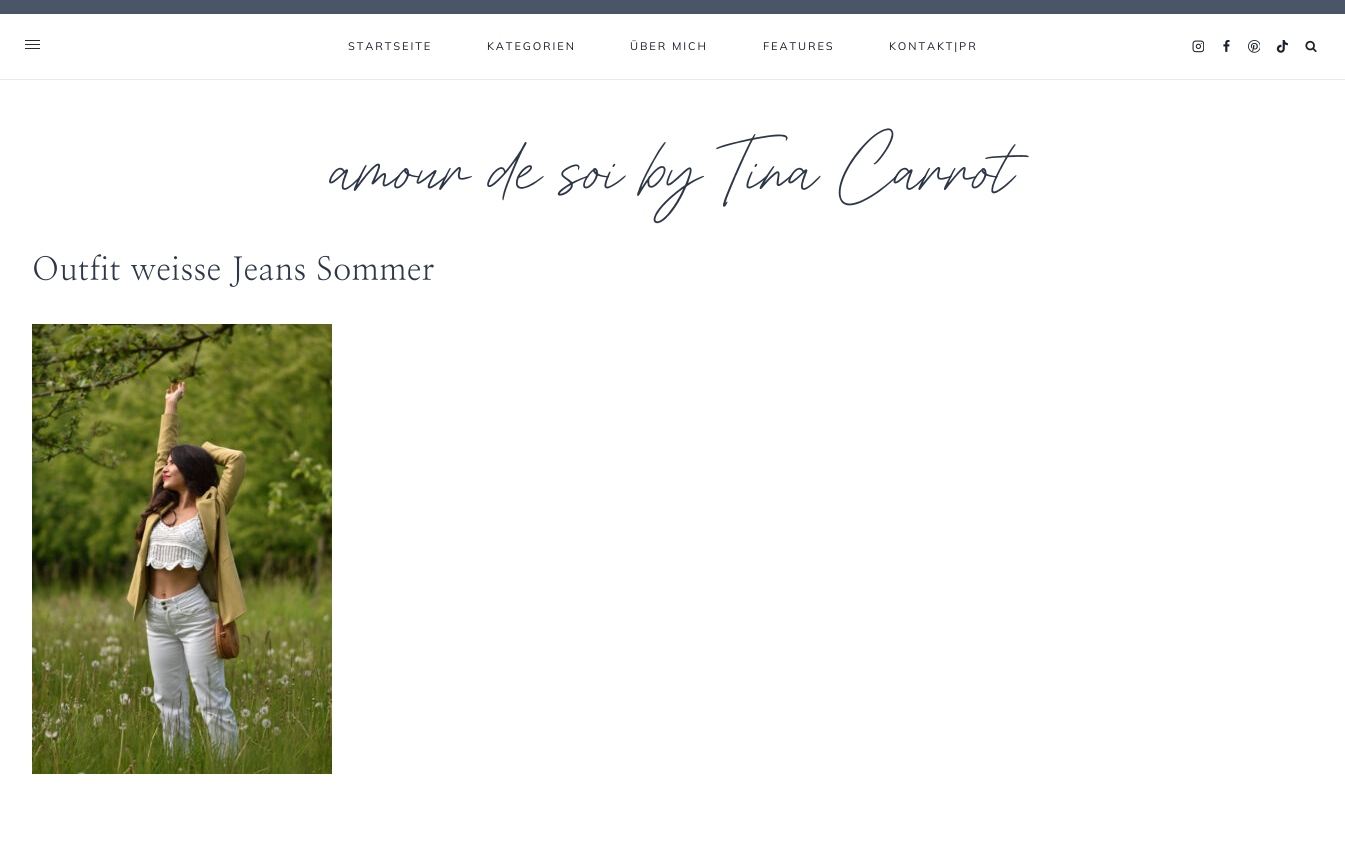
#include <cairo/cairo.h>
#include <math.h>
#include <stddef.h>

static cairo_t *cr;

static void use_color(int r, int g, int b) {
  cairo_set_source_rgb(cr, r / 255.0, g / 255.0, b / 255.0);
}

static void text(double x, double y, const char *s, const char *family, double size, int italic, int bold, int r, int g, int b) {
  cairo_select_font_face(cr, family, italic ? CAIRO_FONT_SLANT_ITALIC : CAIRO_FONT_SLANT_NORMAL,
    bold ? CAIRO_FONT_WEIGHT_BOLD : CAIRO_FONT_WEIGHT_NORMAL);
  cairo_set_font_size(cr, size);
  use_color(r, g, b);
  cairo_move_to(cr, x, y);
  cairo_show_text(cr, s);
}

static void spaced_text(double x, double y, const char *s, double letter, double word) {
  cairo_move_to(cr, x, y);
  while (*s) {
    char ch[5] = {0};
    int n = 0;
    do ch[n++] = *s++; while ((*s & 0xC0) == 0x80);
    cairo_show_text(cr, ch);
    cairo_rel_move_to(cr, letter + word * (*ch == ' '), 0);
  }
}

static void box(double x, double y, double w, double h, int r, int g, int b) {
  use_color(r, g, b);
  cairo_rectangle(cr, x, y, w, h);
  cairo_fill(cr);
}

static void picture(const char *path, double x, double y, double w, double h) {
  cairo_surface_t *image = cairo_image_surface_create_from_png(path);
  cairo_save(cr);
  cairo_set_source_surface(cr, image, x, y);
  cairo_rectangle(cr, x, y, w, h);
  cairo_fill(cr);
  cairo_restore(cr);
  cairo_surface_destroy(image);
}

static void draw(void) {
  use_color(255, 255, 255);
  cairo_paint(cr);
  box(0, 0, 1345, 14, 74, 85, 104);
  box(0, 79, 1345, 1, 238, 234, 232);
  box(25, 40, 15, 1, 43, 43, 43);
  box(25, 44, 15, 1, 43, 43, 43);
  box(25, 48, 15, 1, 43, 43, 43);
  picture("img_01.png", 1192, 40, 12, 13);
  picture("img_02.png", 1223, 40, 7, 12);
  picture("img_03.png", 1248, 40, 12, 13);
  picture("img_04.png", 1276, 40, 12, 13);
  picture("img_05.png", 1305, 40, 12, 12);
  picture("img_06.png", 32, 324, 300, 450);
  cairo_select_font_face(cr, "Mulish ExtraLight", CAIRO_FONT_SLANT_NORMAL, CAIRO_FONT_WEIGHT_NORMAL);
  cairo_set_font_size(cr, 11);
  use_color(26, 32, 44);
  spaced_text(348, 50, "STARTSEITE", 1.9, 0);
  spaced_text(487, 50, "KATEGORIEN", 1.9, 0);
  spaced_text(630, 50, "ÜBER MICH", 1.9, 0);
  spaced_text(763, 50, "FEATURES", 1.9, 0);
  spaced_text(889, 50, "KONTAKT|PR", 1.9, 0);
  text(331, 191, "amour de soi by Tina Carrot", "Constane", 68, 0, 0, 45, 55, 72);
  cairo_select_font_face(cr, "NanumMyeongjo", CAIRO_FONT_SLANT_NORMAL, CAIRO_FONT_WEIGHT_NORMAL);
  cairo_set_font_size(cr, 32);
  spaced_text(32, 280, "Outfit weisse Jeans Sommer", 0.65, 0);
}

int main(void) {
  cairo_surface_t *surface = cairo_image_surface_create(CAIRO_FORMAT_RGB24, 1345, 846);
  cr = cairo_create(surface);
  cairo_font_options_t *options = cairo_font_options_create();
  cairo_font_options_set_hint_metrics(options, CAIRO_HINT_METRICS_OFF);
  cairo_font_options_set_hint_style(options, CAIRO_HINT_STYLE_NONE);
  cairo_set_font_options(cr, options);
  cairo_set_miter_limit(cr, 4);
  draw();
  cairo_surface_write_to_png(surface, "out.png");
  cairo_font_options_destroy(options);
  cairo_destroy(cr);
  cairo_surface_destroy(surface);
  return 0;
}
